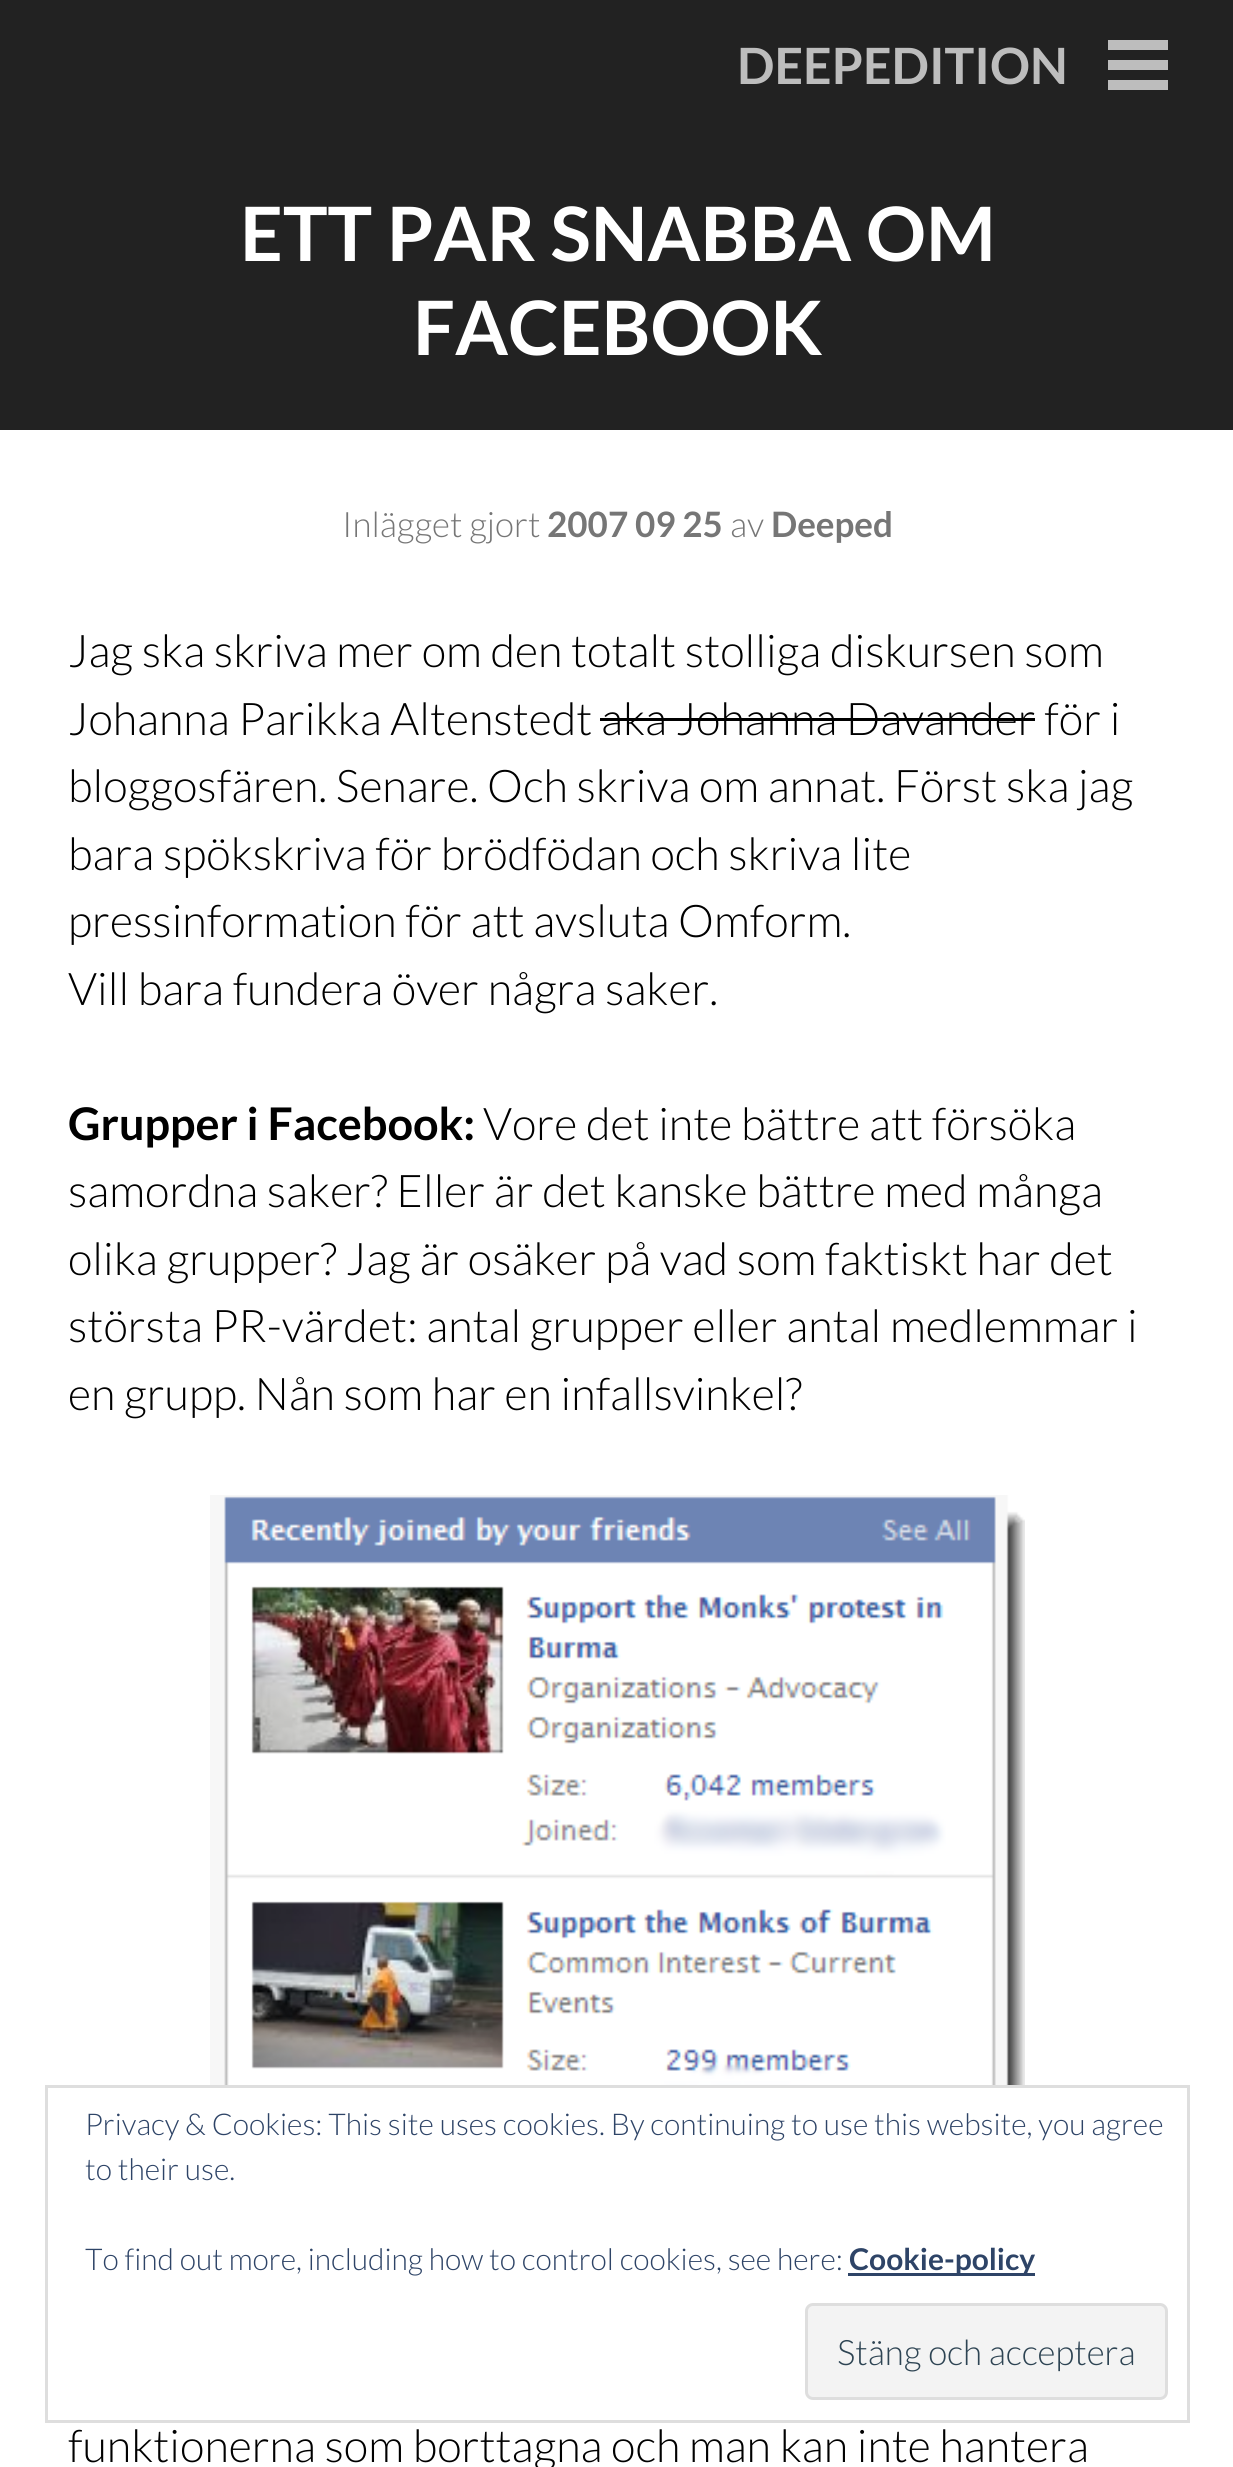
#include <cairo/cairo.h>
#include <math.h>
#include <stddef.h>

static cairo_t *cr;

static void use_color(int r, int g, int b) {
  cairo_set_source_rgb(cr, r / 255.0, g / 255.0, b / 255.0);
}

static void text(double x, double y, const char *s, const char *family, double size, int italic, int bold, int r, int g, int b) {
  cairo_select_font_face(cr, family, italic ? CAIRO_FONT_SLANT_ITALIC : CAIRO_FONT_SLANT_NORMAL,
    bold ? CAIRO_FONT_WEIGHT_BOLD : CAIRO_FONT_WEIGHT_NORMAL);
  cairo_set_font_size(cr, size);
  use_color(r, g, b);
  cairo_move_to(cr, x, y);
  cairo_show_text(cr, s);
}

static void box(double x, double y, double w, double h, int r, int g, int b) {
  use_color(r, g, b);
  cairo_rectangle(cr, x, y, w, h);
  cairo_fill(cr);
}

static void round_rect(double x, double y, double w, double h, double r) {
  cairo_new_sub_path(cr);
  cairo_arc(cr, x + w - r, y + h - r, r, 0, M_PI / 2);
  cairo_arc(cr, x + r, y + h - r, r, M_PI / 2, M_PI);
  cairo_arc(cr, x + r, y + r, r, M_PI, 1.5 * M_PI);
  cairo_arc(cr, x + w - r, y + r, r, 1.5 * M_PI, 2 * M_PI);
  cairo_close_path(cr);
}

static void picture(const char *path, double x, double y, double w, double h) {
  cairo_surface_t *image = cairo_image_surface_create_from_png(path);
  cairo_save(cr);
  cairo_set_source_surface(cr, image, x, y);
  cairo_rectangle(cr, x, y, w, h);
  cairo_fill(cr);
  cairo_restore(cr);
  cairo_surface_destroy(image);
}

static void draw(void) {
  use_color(34, 34, 34);
  cairo_paint(cr);
  box(1108, 60, 60, 10, 189, 189, 189);
  box(1108, 40, 60, 10, 189, 189, 189);
  box(1108, 80, 60, 10, 189, 189, 189);
  box(0, 430, 1233, 2037, 255, 255, 255);
  box(600, 718, 435, 3, 0, 0, 0);
  picture("img_01.png", 210, 1495, 815, 590);
  cairo_rectangle(cr, 46.5, 2086.5, 1142, 335);
  use_color(222, 222, 222);
  cairo_set_line_width(cr, 3);
  cairo_stroke(cr);
  box(848, 2273, 187, 3, 46, 68, 103);
  use_color(243, 243, 243);
  round_rect(806.5, 2304.5, 360, 94, 6.5);
  cairo_fill_preserve(cr);
  use_color(222, 222, 222);
  cairo_stroke(cr);
  text(737, 84, "DEEPEDITION", "Lato", 50, 0, 1, 189, 189, 189);
  text(240, 261, "ETT PAR SNABBA OM", "Lato", 75, 0, 1, 255, 255, 255);
  text(413, 355, "FACEBOOK", "Lato", 75, 0, 1, 255, 255, 255);
  text(342, 537, "Inlägget gjort", "Lato Light", 35, 0, 0, 118, 118, 118);
  text(547, 537, "2007 09 25", "Lato", 35, 0, 1, 118, 118, 118);
  text(730, 537, "av", "Lato Light", 35, 0, 0, 118, 118, 118);
  text(771, 537, "Deeped", "Lato", 35, 0, 1, 118, 118, 118);
  text(68, 667, "Jag ska skriva mer om den totalt stolliga diskursen som", "Lato Light", 45, 0, 0, 0, 0, 0);
  text(68, 735, "Johanna Parikka Altenstedt aka Johanna Davander för i", "Lato Light", 45, 0, 0, 0, 0, 0);
  text(68, 802, "bloggosfären. Senare. Och skriva om annat. Först ska jag", "Lato Light", 45, 0, 0, 0, 0, 0);
  text(68, 870, "bara spökskriva för brödfödan och skriva lite", "Lato Light", 45, 0, 0, 0, 0, 0);
  text(68, 937, "pressinformation för att avsluta Omform.", "Lato Light", 45, 0, 0, 0, 0, 0);
  text(68, 1005, "Vill bara fundera över några saker.", "Lato Light", 45, 0, 0, 0, 0, 0);
  text(68, 1140, "Grupper i Facebook:", "Lato", 45, 0, 1, 0, 0, 0);
  text(483, 1140, "Vore det inte bättre att försöka", "Lato Light", 45, 0, 0, 0, 0, 0);
  text(68, 1207, "samordna saker? Eller är det kanske bättre med många", "Lato Light", 45, 0, 0, 0, 0, 0);
  text(68, 1275, "olika grupper? Jag är osäker på vad som faktiskt har det", "Lato Light", 45, 0, 0, 0, 0, 0);
  text(68, 1342, "största PR-värdet: antal grupper eller antal medlemmar i", "Lato Light", 45, 0, 0, 0, 0, 0);
  text(68, 1410, "en grupp. Nån som har en infallsvinkel?", "Lato Light", 45, 0, 0, 0, 0, 0);
  text(68, 2462, "funktionerna som borttagna och man kan inte hantera", "Lato Light", 45, 0, 0, 0, 0, 0);
  text(85, 2135, "Privacy & Cookies: This site uses cookies. By continuing to use this website, you agree", "Lato Light", 30, 0, 0, 46, 68, 103);
  text(85, 2180, "to their use.", "Lato Light", 30, 0, 0, 46, 68, 103);
  text(85, 2270, "To find out more, including how to control cookies, see here:", "Lato Light", 30, 0, 0, 46, 68, 103);
  text(849, 2270, "Cookie-policy", "Lato", 30, 0, 1, 46, 68, 103);
  text(837, 2365, "Stäng och acceptera", "Lato Light", 35, 0, 0, 46, 68, 83);
}

int main(void) {
  cairo_surface_t *surface = cairo_image_surface_create(CAIRO_FORMAT_RGB24, 1233, 2467);
  cr = cairo_create(surface);
  cairo_font_options_t *options = cairo_font_options_create();
  cairo_font_options_set_hint_metrics(options, CAIRO_HINT_METRICS_OFF);
  cairo_font_options_set_hint_style(options, CAIRO_HINT_STYLE_NONE);
  cairo_set_font_options(cr, options);
  cairo_set_miter_limit(cr, 4);
  draw();
  cairo_surface_write_to_png(surface, "out.png");
  cairo_font_options_destroy(options);
  cairo_destroy(cr);
  cairo_surface_destroy(surface);
  return 0;
}
